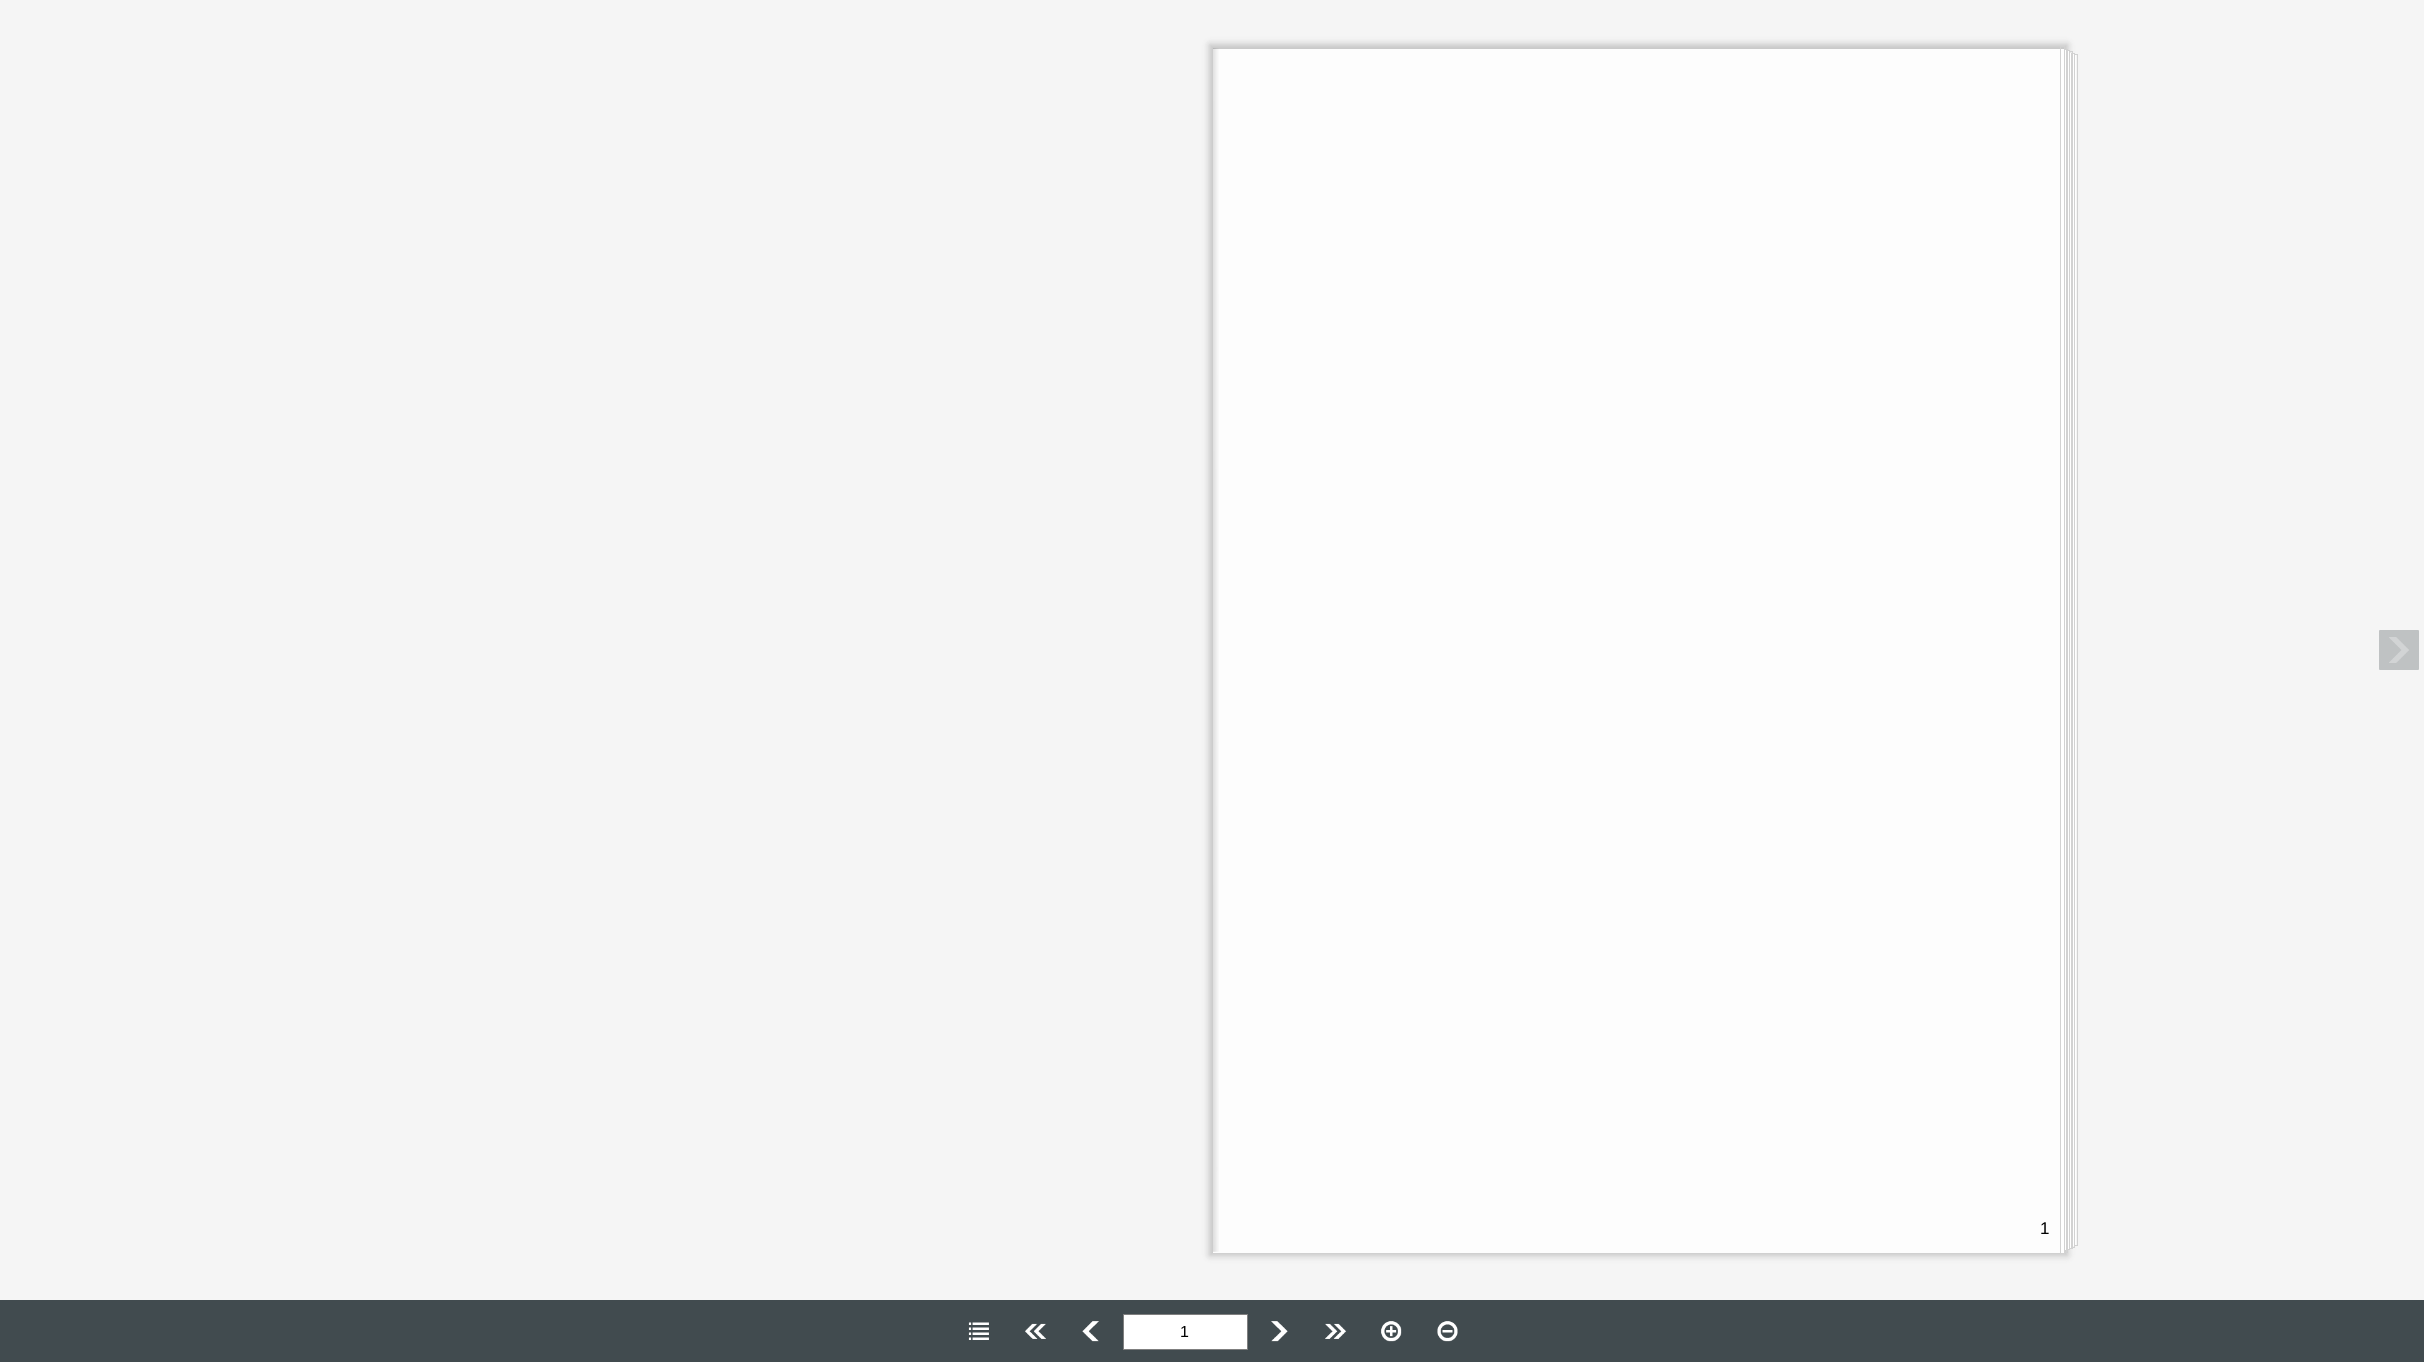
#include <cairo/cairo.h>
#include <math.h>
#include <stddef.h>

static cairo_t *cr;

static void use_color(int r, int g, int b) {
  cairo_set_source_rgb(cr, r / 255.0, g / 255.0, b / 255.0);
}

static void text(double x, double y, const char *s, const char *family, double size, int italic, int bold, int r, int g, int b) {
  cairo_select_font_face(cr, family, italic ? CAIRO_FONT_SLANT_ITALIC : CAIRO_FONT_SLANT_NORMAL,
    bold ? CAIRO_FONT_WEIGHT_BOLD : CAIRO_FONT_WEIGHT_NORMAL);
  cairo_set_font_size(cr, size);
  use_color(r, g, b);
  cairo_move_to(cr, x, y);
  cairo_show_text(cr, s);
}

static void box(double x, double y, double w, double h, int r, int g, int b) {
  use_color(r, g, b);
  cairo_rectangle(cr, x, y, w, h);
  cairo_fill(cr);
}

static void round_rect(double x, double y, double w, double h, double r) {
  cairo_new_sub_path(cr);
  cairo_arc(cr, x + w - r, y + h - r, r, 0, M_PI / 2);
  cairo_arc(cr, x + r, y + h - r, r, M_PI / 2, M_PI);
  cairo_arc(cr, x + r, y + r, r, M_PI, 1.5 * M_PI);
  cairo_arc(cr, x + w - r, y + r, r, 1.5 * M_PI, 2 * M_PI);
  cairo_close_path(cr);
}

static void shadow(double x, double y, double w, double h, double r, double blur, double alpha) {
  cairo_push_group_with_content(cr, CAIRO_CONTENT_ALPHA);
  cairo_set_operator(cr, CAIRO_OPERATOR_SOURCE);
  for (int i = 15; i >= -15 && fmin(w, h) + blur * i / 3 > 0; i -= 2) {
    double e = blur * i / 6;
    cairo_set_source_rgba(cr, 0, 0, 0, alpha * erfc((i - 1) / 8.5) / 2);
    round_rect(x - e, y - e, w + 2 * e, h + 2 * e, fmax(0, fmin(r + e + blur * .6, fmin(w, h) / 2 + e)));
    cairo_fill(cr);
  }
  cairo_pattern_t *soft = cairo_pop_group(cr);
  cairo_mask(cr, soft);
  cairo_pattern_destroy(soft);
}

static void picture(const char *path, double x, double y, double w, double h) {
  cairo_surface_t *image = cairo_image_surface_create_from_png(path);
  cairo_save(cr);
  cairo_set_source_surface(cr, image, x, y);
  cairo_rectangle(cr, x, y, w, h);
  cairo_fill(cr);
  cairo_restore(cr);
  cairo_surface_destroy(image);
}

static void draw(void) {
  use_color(245, 245, 245);
  cairo_paint(cr);
  use_color(0, 0, 0);
  shadow(1209, 44, 859, 1212, 0, 3.5, 0.2);
  box(1213, 49, 847, 1204, 253, 253, 253);
  cairo_rectangle(cr, 2060.5, 46.5, 4, 1207);
  use_color(210, 210, 210);
  cairo_set_line_width(cr, 1);
  cairo_stroke(cr);
  box(2061, 49, 3, 1204, 255, 255, 255);
  cairo_rectangle(cr, 2064.5, 49.5, 3, 1203);
  use_color(210, 210, 210);
  cairo_stroke(cr);
  box(2065, 50, 1, 1200, 255, 255, 255);
  cairo_rectangle(cr, 2066.5, 50.5, 3, 1199);
  use_color(210, 210, 210);
  cairo_stroke(cr);
  box(2068, 51, 1, 1198, 255, 255, 255);
  cairo_rectangle(cr, 2069.5, 51.5, 3, 1197);
  use_color(210, 210, 210);
  cairo_stroke(cr);
  box(2070, 53, 1, 1195, 255, 255, 255);
  cairo_rectangle(cr, 2071.5, 53.5, 3, 1194);
  use_color(210, 210, 210);
  cairo_stroke(cr);
  box(2073, 54, 1, 1192, 255, 255, 255);
  cairo_rectangle(cr, 2074.5, 54.5, 3, 1191);
  use_color(210, 210, 210);
  cairo_stroke(cr);
  box(2075, 55, 1, 1190, 255, 255, 255);
  picture("img_01.png", 1213, 48, 6, 1204);
  use_color(191, 194, 195);
  round_rect(2379, 630, 40, 40, 1);
  cairo_fill(cr);
  picture("img_02.png", 2389, 637, 20, 26);
  box(0, 1300, 2424, 62, 65, 75, 79);
  picture("img_03.png", 968, 1322, 21, 18);
  picture("img_04.png", 1025, 1323, 21, 16);
  picture("img_05.png", 1082, 1321, 17, 21);
  use_color(255, 255, 255);
  cairo_rectangle(cr, 1123.5, 1314.5, 124, 35);
  cairo_fill_preserve(cr);
  use_color(127, 127, 127);
  cairo_stroke(cr);
  picture("img_06.png", 1271, 1321, 17, 21);
  picture("img_07.png", 1325, 1323, 22, 16);
  picture("img_08.png", 1381, 1321, 21, 21);
  picture("img_09.png", 1437, 1321, 21, 21);
  text(2040, 1234, "1", "Liberation Sans", 17, 0, 0, 0, 0, 0);
  text(1180, 1337, "1", "Liberation Sans", 16, 0, 0, 0, 0, 0);
}

int main(void) {
  cairo_surface_t *surface = cairo_image_surface_create(CAIRO_FORMAT_RGB24, 2424, 1362);
  cr = cairo_create(surface);
  cairo_font_options_t *options = cairo_font_options_create();
  cairo_font_options_set_hint_metrics(options, CAIRO_HINT_METRICS_OFF);
  cairo_font_options_set_hint_style(options, CAIRO_HINT_STYLE_NONE);
  cairo_set_font_options(cr, options);
  cairo_set_miter_limit(cr, 4);
  draw();
  cairo_surface_write_to_png(surface, "out.png");
  cairo_font_options_destroy(options);
  cairo_destroy(cr);
  cairo_surface_destroy(surface);
  return 0;
}
